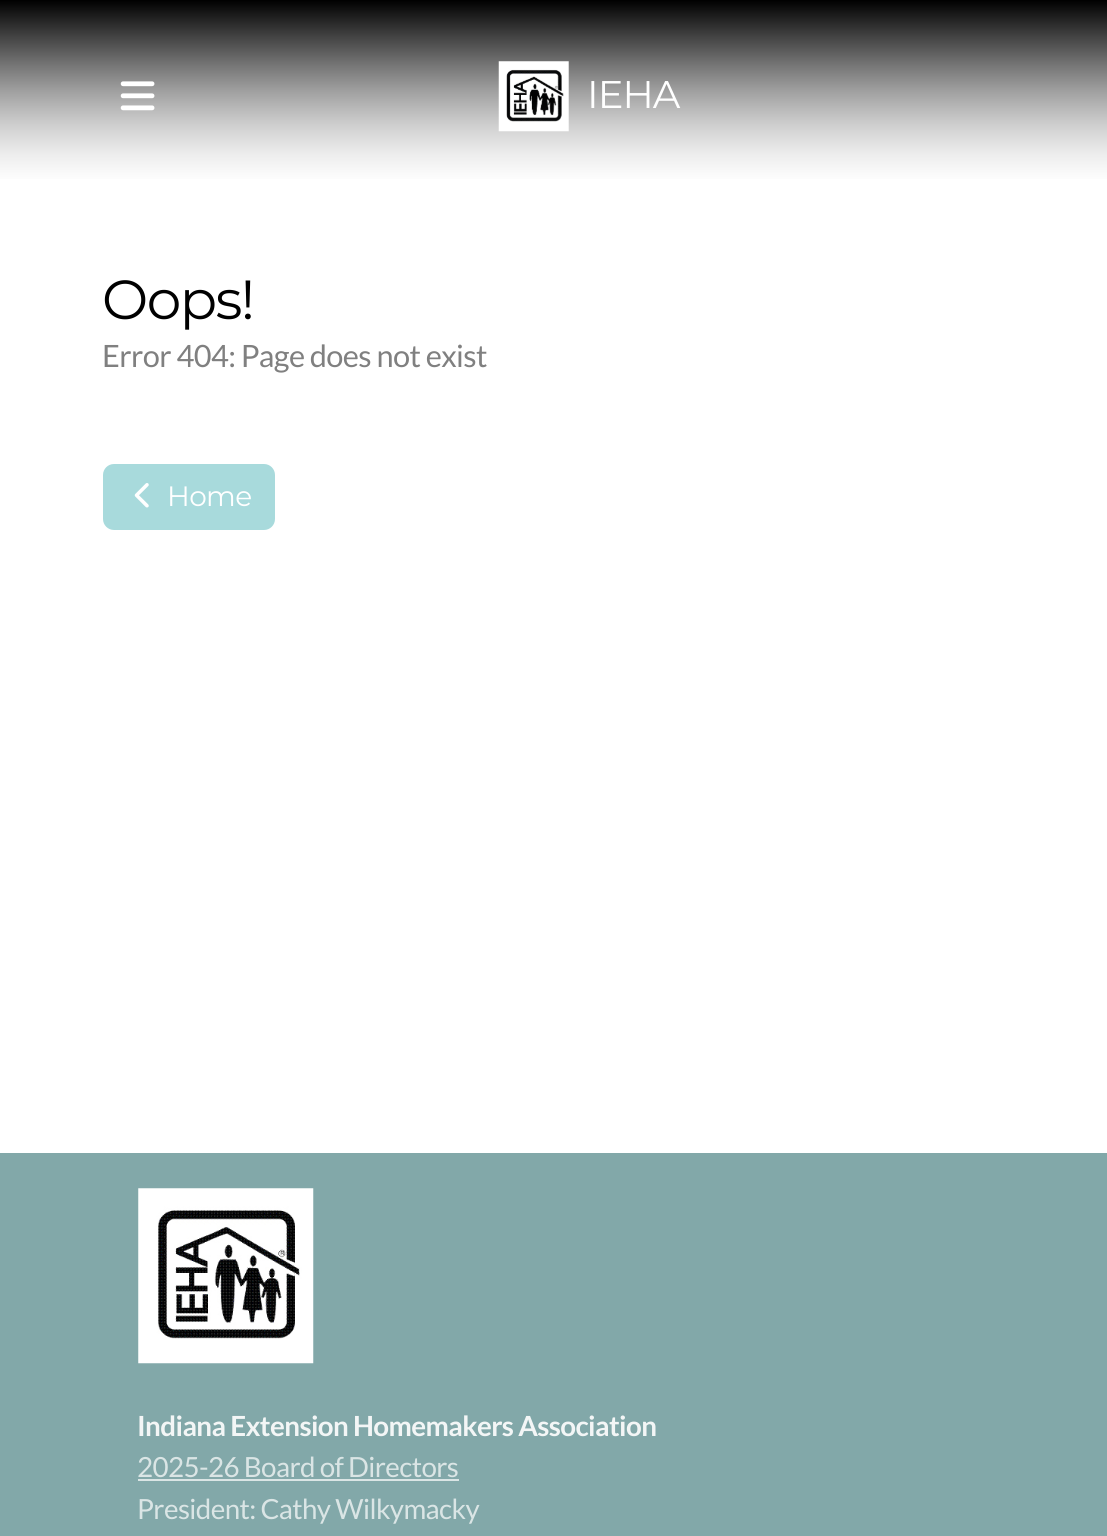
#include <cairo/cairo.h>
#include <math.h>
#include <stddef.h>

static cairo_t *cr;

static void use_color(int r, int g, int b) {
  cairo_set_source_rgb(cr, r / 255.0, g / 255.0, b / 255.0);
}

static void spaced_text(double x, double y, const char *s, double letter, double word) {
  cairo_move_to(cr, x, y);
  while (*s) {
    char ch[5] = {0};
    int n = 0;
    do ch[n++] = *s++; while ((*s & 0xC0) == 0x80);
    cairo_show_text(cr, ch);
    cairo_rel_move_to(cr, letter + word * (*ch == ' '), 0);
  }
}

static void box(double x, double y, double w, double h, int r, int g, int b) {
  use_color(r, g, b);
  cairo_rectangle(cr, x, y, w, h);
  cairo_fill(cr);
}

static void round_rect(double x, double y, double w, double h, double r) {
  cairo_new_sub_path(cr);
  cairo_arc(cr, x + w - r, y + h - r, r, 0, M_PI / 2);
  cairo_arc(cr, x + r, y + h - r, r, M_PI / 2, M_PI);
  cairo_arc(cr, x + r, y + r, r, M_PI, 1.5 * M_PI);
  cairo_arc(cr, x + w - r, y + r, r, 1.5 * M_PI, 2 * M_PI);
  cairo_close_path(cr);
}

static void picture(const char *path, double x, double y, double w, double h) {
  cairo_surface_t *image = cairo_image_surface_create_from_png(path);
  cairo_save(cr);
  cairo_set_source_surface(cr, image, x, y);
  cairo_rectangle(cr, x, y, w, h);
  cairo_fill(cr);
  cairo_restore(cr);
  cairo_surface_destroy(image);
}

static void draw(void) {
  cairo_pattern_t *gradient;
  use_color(255, 255, 255);
  cairo_paint(cr);
  gradient = cairo_pattern_create_linear(554, 0, 554, 193);
  cairo_pattern_add_color_stop_rgba(gradient, 0, 0, 0, 0, 1);
  cairo_pattern_add_color_stop_rgba(gradient, 0.19, 0.263, 0.263, 0.263, 1);
  cairo_pattern_add_color_stop_rgba(gradient, 0.34, 0.463, 0.463, 0.463, 1);
  cairo_pattern_add_color_stop_rgba(gradient, 0.47, 0.624, 0.624, 0.624, 1);
  cairo_pattern_add_color_stop_rgba(gradient, 0.56, 0.722, 0.722, 0.722, 1);
  cairo_pattern_add_color_stop_rgba(gradient, 0.65, 0.812, 0.812, 0.812, 1);
  cairo_pattern_add_color_stop_rgba(gradient, 0.73, 0.878, 0.878, 0.878, 1);
  cairo_pattern_add_color_stop_rgba(gradient, 0.8, 0.929, 0.929, 0.929, 1);
  cairo_pattern_add_color_stop_rgba(gradient, 0.86, 0.961, 0.961, 0.961, 1);
  cairo_pattern_add_color_stop_rgba(gradient, 0.91, 0.984, 0.984, 0.984, 1);
  cairo_pattern_add_color_stop_rgba(gradient, 0.95, 0.996, 0.996, 0.996, 1);
  cairo_pattern_add_color_stop_rgba(gradient, 0.98, 1, 1, 1, 1);
  cairo_pattern_add_color_stop_rgba(gradient, 1, 1, 1, 1, 1);
  cairo_set_source(cr, gradient);
  cairo_pattern_destroy(gradient);
  cairo_rectangle(cr, 0, 0, 1107, 179);
  cairo_fill(cr);
  picture("img_01.png", 120, 81, 35, 30);
  picture("img_02.png", 498, 61, 71, 71);
  use_color(168, 218, 220);
  round_rect(104, 465, 170, 64, 10);
  cairo_fill_preserve(cr);
  cairo_stroke(cr);
  picture("img_03.png", 134, 483, 15, 25);
  box(0, 1153, 1107, 383, 130, 168, 169);
  picture("img_04.png", 138, 1188, 176, 176);
  box(138, 1479, 321, 2, 218, 229, 229);
  cairo_select_font_face(cr, "Montserrat", CAIRO_FONT_SLANT_NORMAL, CAIRO_FONT_WEIGHT_NORMAL);
  cairo_set_font_size(cr, 38.5);
  use_color(255, 255, 255);
  spaced_text(587, 108, "IEHA", -1, 0);
  cairo_set_font_size(cr, 55);
  use_color(0, 0, 0);
  spaced_text(102, 319, "Oops!", -1.5, 0);
  cairo_select_font_face(cr, "Lato", CAIRO_FONT_SLANT_NORMAL, CAIRO_FONT_WEIGHT_NORMAL);
  cairo_set_font_size(cr, 30.75);
  use_color(128, 128, 128);
  spaced_text(102, 367, "Error 404: Page does not exist", -0.6, 0);
  cairo_select_font_face(cr, "Montserrat", CAIRO_FONT_SLANT_NORMAL, CAIRO_FONT_WEIGHT_NORMAL);
  cairo_set_font_size(cr, 28);
  use_color(255, 255, 255);
  spaced_text(167, 506, "Home", -0.6, 0);
  cairo_select_font_face(cr, "Lato", CAIRO_FONT_SLANT_NORMAL, CAIRO_FONT_WEIGHT_BOLD);
  cairo_set_font_size(cr, 27.75);
  use_color(243, 246, 246);
  spaced_text(137, 1436, "Indiana Extension Homemakers Association", -0.6, 0);
  cairo_select_font_face(cr, "Lato", CAIRO_FONT_SLANT_NORMAL, CAIRO_FONT_WEIGHT_NORMAL);
  use_color(218, 229, 229);
  spaced_text(137, 1477, "2025-26 Board of Directors", -0.6, 0);
  spaced_text(137, 1519, "President: Cathy Wilkymacky", -0.6, 0);
}

int main(void) {
  cairo_surface_t *surface = cairo_image_surface_create(CAIRO_FORMAT_RGB24, 1107, 1536);
  cr = cairo_create(surface);
  cairo_font_options_t *options = cairo_font_options_create();
  cairo_font_options_set_hint_metrics(options, CAIRO_HINT_METRICS_OFF);
  cairo_font_options_set_hint_style(options, CAIRO_HINT_STYLE_NONE);
  cairo_set_font_options(cr, options);
  cairo_set_miter_limit(cr, 4);
  draw();
  cairo_surface_write_to_png(surface, "out.png");
  cairo_font_options_destroy(options);
  cairo_destroy(cr);
  cairo_surface_destroy(surface);
  return 0;
}
